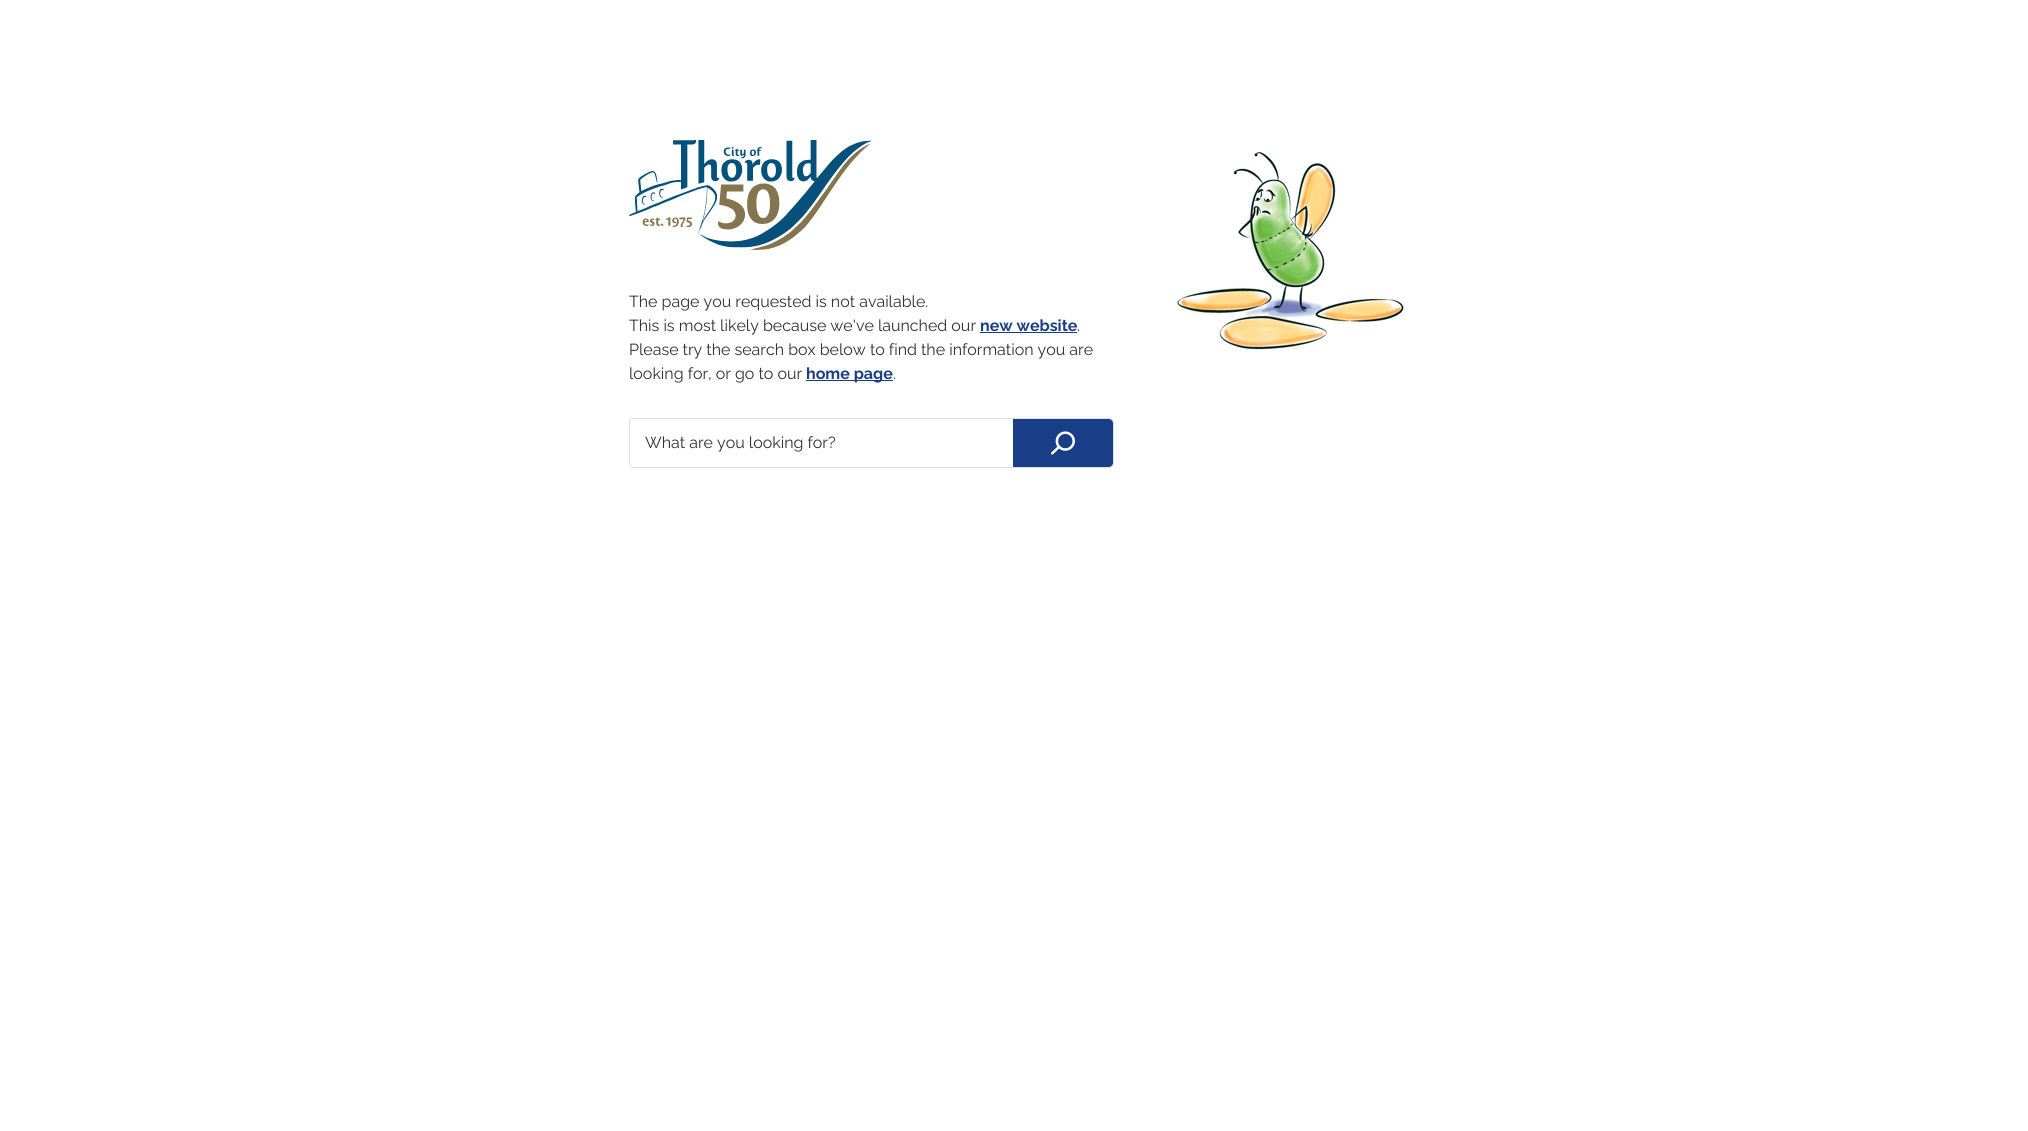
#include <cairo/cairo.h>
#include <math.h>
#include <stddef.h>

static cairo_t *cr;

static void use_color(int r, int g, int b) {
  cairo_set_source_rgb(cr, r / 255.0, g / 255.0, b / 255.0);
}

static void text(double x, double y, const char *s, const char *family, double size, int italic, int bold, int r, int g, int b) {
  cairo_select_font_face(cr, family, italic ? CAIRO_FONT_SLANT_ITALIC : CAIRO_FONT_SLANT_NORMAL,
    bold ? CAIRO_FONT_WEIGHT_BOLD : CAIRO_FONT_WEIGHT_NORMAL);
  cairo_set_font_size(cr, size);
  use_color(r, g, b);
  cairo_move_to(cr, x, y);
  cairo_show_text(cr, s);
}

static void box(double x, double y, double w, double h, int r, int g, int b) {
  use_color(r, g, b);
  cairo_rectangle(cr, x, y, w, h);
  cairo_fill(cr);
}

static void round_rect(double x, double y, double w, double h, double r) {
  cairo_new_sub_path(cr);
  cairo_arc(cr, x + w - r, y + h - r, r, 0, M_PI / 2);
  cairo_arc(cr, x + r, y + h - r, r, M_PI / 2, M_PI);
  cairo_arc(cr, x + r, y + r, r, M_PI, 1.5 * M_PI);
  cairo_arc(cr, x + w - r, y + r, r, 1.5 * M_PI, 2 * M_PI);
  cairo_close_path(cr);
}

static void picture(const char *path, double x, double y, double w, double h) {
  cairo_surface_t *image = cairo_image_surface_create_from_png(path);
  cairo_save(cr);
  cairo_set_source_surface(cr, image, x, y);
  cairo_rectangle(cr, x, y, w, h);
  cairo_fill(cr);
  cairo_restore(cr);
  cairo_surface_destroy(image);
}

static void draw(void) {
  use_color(255, 255, 255);
  cairo_paint(cr);
  picture("img_01.png", 1177, 151, 229, 200);
  picture("img_02.png", 629, 140, 243, 110);
  box(980, 332, 97, 1, 24, 62, 136);
  box(806, 380, 87, 1, 24, 62, 136);
  round_rect(629.5, 418.5, 484, 49, 3.5);
  use_color(224, 224, 224);
  cairo_set_line_width(cr, 1);
  cairo_stroke(cr);
  use_color(24, 62, 136);
  cairo_new_path(cr);
  cairo_move_to(cr, 1013, 419);
  cairo_line_to(cr, 1109, 419);
  cairo_curve_to(cr, 1111, 419, 1113, 421, 1113, 423);
  cairo_line_to(cr, 1113, 463);
  cairo_curve_to(cr, 1113, 465, 1111, 467, 1109, 467);
  cairo_line_to(cr, 1013, 467);
  cairo_close_path(cr);
  cairo_fill(cr);
  picture("img_03.png", 1051, 431, 24, 24);
  text(629, 307, "The page you requested is not available.", "Raleway", 16, 0, 0, 49, 49, 49);
  text(629, 331, "This is most likely because we've launched our", "Raleway", 16, 0, 0, 49, 49, 49);
  text(980, 331, "new website", "Raleway", 16, 0, 1, 24, 62, 136);
  text(1077, 331, ".", "Raleway", 16, 0, 0, 49, 49, 49);
  text(629, 355, "Please try the search box below to find the information you are", "Raleway", 16, 0, 0, 49, 49, 49);
  text(629, 379, "looking for, or go to our", "Raleway", 16, 0, 0, 49, 49, 49);
  text(806, 379, "home page", "Raleway", 16, 0, 1, 24, 62, 136);
  text(893, 379, ".", "Raleway", 16, 0, 0, 49, 49, 49);
  text(645, 448, "What are you looking for?", "Raleway", 16, 0, 0, 49, 49, 49);
}

int main(void) {
  cairo_surface_t *surface = cairo_image_surface_create(CAIRO_FORMAT_RGB24, 2028, 1131);
  cr = cairo_create(surface);
  cairo_font_options_t *options = cairo_font_options_create();
  cairo_font_options_set_hint_metrics(options, CAIRO_HINT_METRICS_OFF);
  cairo_font_options_set_hint_style(options, CAIRO_HINT_STYLE_NONE);
  cairo_set_font_options(cr, options);
  cairo_set_miter_limit(cr, 4);
  draw();
  cairo_surface_write_to_png(surface, "out.png");
  cairo_font_options_destroy(options);
  cairo_destroy(cr);
  cairo_surface_destroy(surface);
  return 0;
}
